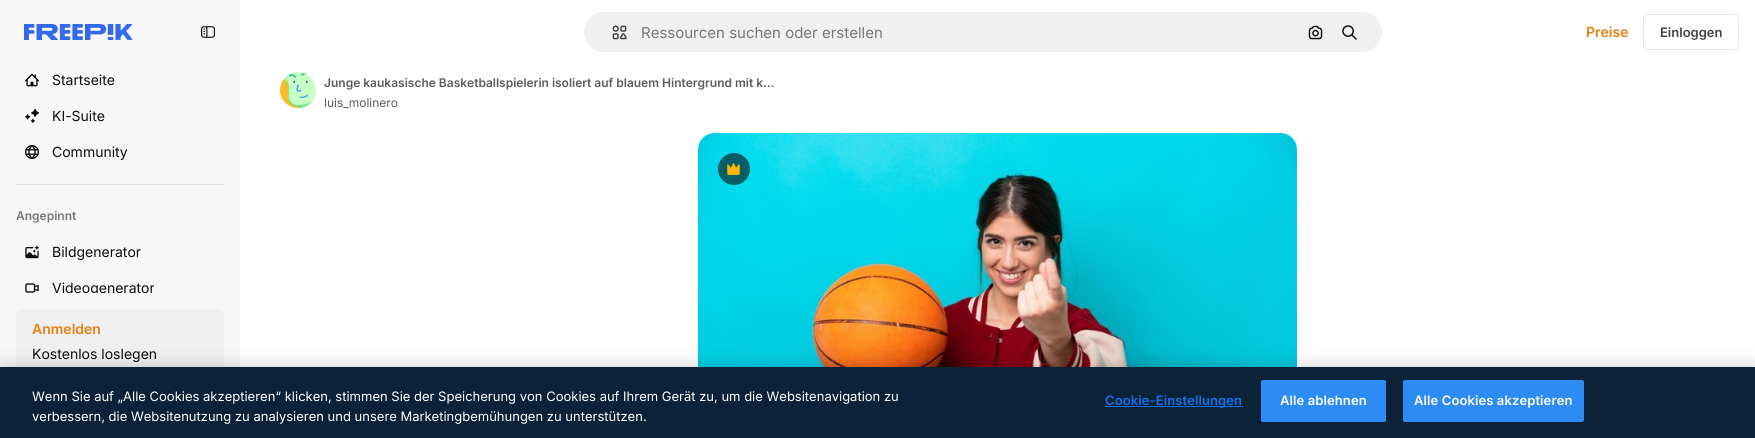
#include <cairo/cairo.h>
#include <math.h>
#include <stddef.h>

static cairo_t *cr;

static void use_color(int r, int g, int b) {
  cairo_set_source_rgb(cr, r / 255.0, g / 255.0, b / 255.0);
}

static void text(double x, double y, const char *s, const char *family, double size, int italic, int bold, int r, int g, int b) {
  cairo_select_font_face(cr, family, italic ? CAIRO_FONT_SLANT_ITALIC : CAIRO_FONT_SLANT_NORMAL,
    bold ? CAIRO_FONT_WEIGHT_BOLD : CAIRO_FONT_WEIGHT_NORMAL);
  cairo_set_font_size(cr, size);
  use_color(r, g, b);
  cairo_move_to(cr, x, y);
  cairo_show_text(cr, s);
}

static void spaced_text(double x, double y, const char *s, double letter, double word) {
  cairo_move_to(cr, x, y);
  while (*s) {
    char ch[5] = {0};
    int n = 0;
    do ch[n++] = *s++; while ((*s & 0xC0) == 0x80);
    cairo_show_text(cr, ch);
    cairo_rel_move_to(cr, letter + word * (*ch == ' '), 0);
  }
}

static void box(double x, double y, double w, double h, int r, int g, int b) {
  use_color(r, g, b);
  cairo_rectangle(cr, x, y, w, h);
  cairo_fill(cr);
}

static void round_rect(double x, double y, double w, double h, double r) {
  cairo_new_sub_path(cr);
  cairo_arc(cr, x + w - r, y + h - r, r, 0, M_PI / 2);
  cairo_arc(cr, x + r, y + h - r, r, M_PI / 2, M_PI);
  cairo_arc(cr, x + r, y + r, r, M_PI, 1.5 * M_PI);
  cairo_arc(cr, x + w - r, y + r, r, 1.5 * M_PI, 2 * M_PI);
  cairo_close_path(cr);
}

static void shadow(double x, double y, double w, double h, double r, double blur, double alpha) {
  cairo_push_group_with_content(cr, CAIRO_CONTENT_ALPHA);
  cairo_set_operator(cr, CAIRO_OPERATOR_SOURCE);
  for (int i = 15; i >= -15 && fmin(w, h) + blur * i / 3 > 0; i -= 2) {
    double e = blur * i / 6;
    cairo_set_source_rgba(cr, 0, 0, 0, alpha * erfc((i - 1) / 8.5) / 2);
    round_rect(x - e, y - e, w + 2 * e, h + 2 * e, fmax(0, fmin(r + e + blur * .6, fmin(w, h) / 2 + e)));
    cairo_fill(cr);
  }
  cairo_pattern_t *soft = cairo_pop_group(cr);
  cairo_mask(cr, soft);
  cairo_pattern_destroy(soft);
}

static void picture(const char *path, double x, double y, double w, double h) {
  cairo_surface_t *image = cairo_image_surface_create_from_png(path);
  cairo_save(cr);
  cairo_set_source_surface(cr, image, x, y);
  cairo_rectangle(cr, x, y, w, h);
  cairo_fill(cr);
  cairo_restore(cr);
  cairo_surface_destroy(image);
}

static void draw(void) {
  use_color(255, 255, 255);
  cairo_paint(cr);
  box(0, 0, 240, 367, 247, 247, 247);
  picture("img_01.png", 24, 24, 109, 16);
  picture("img_02.png", 201, 26, 14, 12);
  picture("img_03.png", 25, 73, 14, 14);
  picture("img_04.png", 25, 109, 14, 14);
  picture("img_05.png", 25, 145, 14, 14);
  box(16, 184, 208, 1, 224, 224, 224);
  picture("img_06.png", 25, 245, 14, 14);
  picture("img_07.png", 25, 283, 14, 10);
  use_color(240, 240, 240);
  round_rect(16, 309, 208, 65, 8);
  cairo_fill(cr);
  round_rect(583.5, 11.5, 799, 41, 20.5);
  cairo_fill_preserve(cr);
  use_color(255, 255, 255);
  cairo_set_line_width(cr, 1);
  cairo_stroke(cr);
  picture("img_08.png", 612, 25, 15, 15);
  picture("img_09.png", 1308, 25, 15, 15);
  picture("img_10.png", 1342, 25, 15, 15);
  round_rect(1643.5, 14.5, 95, 35, 3.5);
  use_color(231, 231, 231);
  cairo_stroke(cr);
  picture("img_11.png", 280, 72, 36, 36);
  picture("img_12.png", 698, 133, 599, 234);
  cairo_set_source_rgba(cr, 0.051, 0.051, 0.051, 0.6);
  cairo_arc(cr, 734, 169, 16, 0, 2 * M_PI);
  cairo_fill(cr);
  picture("img_13.png", 727, 163, 13, 12);
  use_color(0, 0, 0);
  shadow(0, 367, 1755, 71, 0, 9, 0.2);
  box(0, 367, 1755, 71, 11, 34, 57);
  box(1105, 406, 138, 1, 18, 115, 235);
  use_color(44, 140, 244);
  round_rect(1261.5, 380.5, 124, 41, 1.5);
  cairo_fill_preserve(cr);
  cairo_stroke(cr);
  round_rect(1403.5, 380.5, 180, 41, 1.5);
  cairo_fill_preserve(cr);
  cairo_stroke(cr);
  text(52, 85, "Startseite", "Inter", 14, 0, 0, 13, 13, 13);
  text(52, 121, "KI-Suite", "Inter", 14, 0, 0, 13, 13, 13);
  text(52, 157, "Community", "Inter", 14, 0, 0, 13, 13, 13);
  text(16, 220, "Angepinnt", "Inter SemiBold", 12, 0, 0, 120, 120, 120);
  text(52, 257, "Bildgenerator", "Inter", 14, 0, 0, 13, 13, 13);
  cairo_save(cr);
  cairo_rectangle(cr, 52, 277, 144, 16);
  cairo_clip(cr);
  text(52, 293, "Videogenerator", "Inter", 14, 0, 0, 13, 13, 13);
  cairo_restore(cr);
  text(32, 334, "Anmelden", "Inter SemiBold", 14, 0, 0, 234, 126, 17);
  text(32, 359, "Kostenlos loslegen", "Inter", 14, 0, 0, 13, 13, 13);
  text(641, 38, "Ressourcen suchen oder erstellen", "Inter", 15, 0, 0, 120, 120, 120);
  text(1586, 37, "Preise", "Inter SemiBold", 14, 0, 0, 234, 126, 17);
  text(1660, 37, "Einloggen", "Inter SemiBold", 13, 0, 0, 66, 66, 66);
  text(324, 87, "Junge kaukasische Basketballspielerin isoliert auf blauem Hintergrund mit k…", "Inter SemiBold", 12, 0, 0, 92, 92, 92);
  text(324, 107, "luis_molinero", "Inter", 12, 0, 0, 92, 92, 92);
  text(32, 401, "Wenn Sie auf „Alle Cookies akzeptieren“ klicken, stimmen Sie der Speicherung von Cookies auf Ihrem Gerät zu, um die Websitenavigation zu", "Inter", 13, 0, 0, 255, 255, 255);
  text(32, 421, "verbessern, die Websitenutzung zu analysieren und unsere Marketingbemühungen zu unterstützen.", "Inter", 13, 0, 0, 255, 255, 255);
  cairo_select_font_face(cr, "Inter SemiBold", CAIRO_FONT_SLANT_NORMAL, CAIRO_FONT_WEIGHT_NORMAL);
  use_color(18, 115, 235);
  spaced_text(1105, 405, "Cookie-Einstellungen", 0.1, 0);
  use_color(255, 255, 255);
  spaced_text(1280, 405, "Alle ablehnen", 0.1, 0);
  spaced_text(1414, 405, "Alle Cookies akzeptieren", 0.1, 0);
}

int main(void) {
  cairo_surface_t *surface = cairo_image_surface_create(CAIRO_FORMAT_RGB24, 1755, 438);
  cr = cairo_create(surface);
  cairo_font_options_t *options = cairo_font_options_create();
  cairo_font_options_set_hint_metrics(options, CAIRO_HINT_METRICS_OFF);
  cairo_font_options_set_hint_style(options, CAIRO_HINT_STYLE_NONE);
  cairo_set_font_options(cr, options);
  cairo_set_miter_limit(cr, 4);
  draw();
  cairo_surface_write_to_png(surface, "out.png");
  cairo_font_options_destroy(options);
  cairo_destroy(cr);
  cairo_surface_destroy(surface);
  return 0;
}
